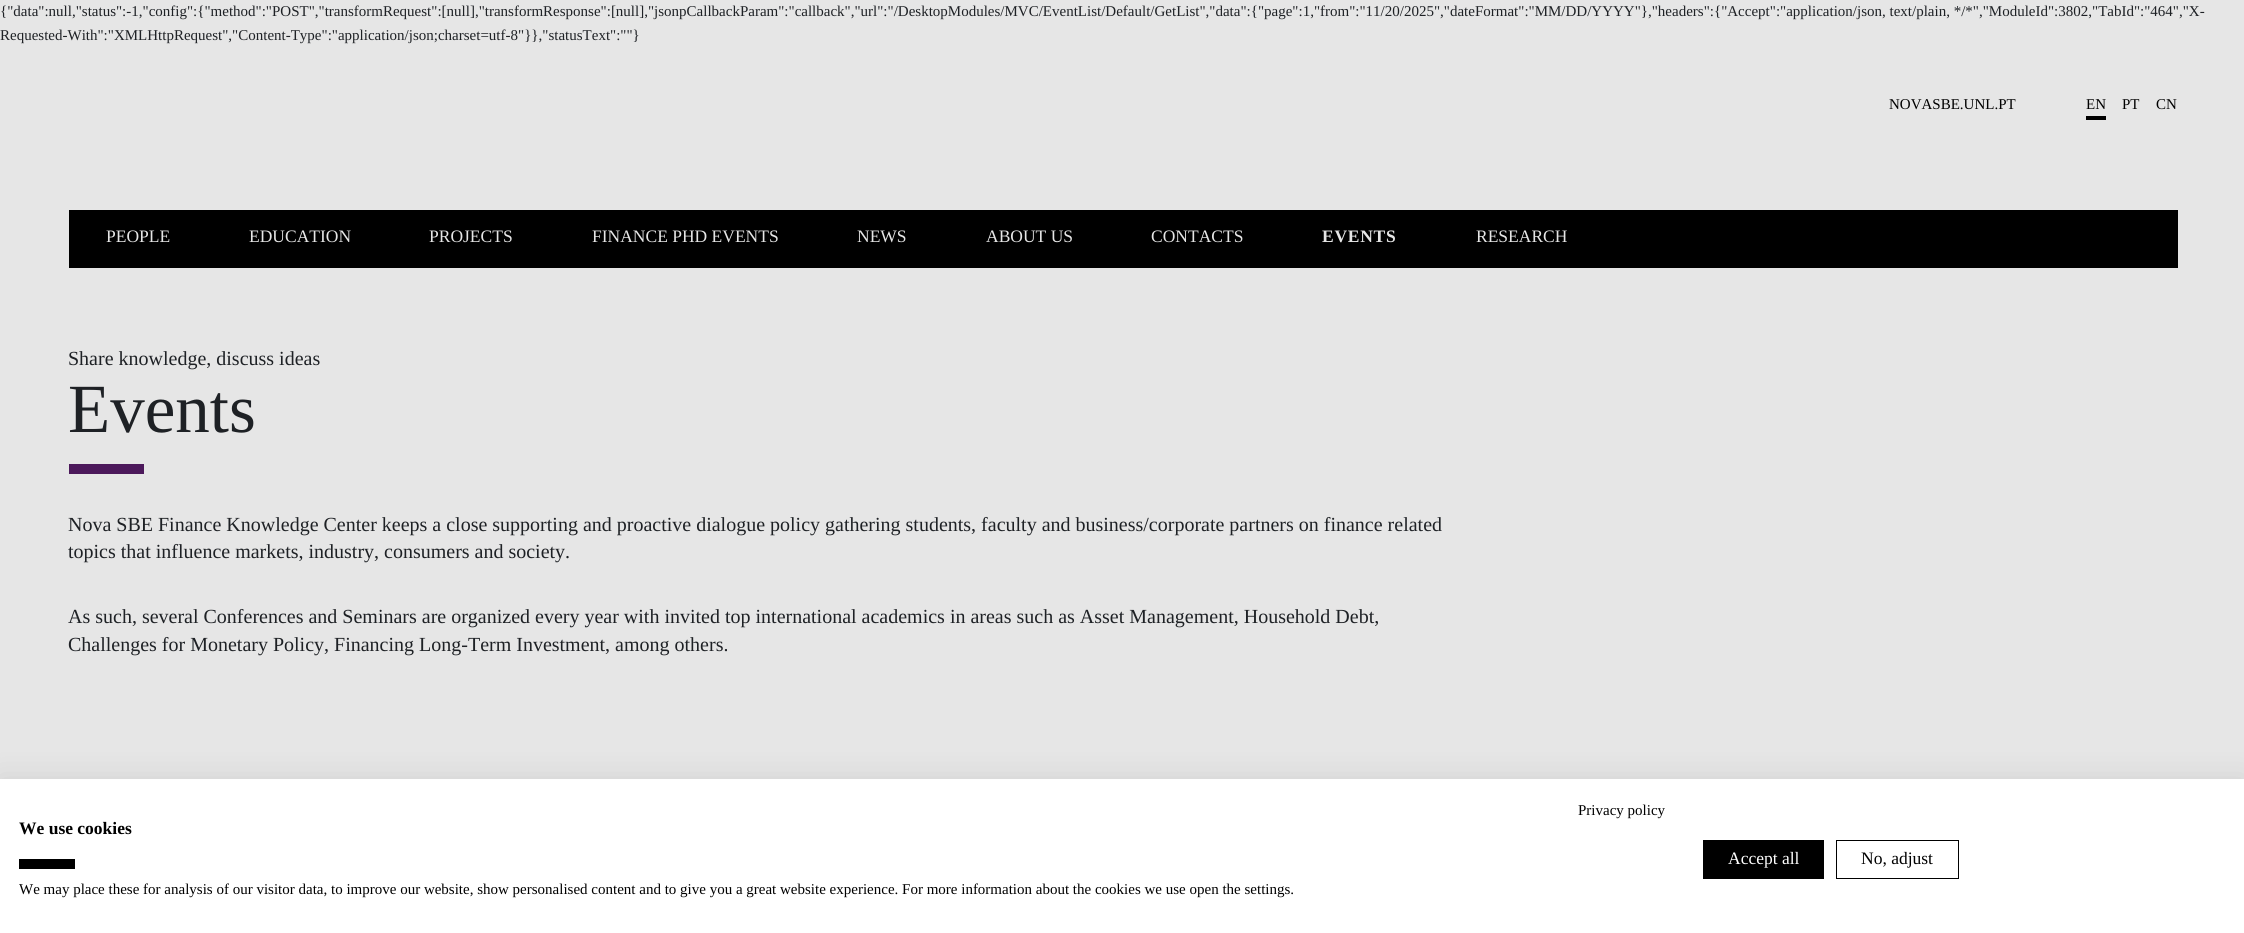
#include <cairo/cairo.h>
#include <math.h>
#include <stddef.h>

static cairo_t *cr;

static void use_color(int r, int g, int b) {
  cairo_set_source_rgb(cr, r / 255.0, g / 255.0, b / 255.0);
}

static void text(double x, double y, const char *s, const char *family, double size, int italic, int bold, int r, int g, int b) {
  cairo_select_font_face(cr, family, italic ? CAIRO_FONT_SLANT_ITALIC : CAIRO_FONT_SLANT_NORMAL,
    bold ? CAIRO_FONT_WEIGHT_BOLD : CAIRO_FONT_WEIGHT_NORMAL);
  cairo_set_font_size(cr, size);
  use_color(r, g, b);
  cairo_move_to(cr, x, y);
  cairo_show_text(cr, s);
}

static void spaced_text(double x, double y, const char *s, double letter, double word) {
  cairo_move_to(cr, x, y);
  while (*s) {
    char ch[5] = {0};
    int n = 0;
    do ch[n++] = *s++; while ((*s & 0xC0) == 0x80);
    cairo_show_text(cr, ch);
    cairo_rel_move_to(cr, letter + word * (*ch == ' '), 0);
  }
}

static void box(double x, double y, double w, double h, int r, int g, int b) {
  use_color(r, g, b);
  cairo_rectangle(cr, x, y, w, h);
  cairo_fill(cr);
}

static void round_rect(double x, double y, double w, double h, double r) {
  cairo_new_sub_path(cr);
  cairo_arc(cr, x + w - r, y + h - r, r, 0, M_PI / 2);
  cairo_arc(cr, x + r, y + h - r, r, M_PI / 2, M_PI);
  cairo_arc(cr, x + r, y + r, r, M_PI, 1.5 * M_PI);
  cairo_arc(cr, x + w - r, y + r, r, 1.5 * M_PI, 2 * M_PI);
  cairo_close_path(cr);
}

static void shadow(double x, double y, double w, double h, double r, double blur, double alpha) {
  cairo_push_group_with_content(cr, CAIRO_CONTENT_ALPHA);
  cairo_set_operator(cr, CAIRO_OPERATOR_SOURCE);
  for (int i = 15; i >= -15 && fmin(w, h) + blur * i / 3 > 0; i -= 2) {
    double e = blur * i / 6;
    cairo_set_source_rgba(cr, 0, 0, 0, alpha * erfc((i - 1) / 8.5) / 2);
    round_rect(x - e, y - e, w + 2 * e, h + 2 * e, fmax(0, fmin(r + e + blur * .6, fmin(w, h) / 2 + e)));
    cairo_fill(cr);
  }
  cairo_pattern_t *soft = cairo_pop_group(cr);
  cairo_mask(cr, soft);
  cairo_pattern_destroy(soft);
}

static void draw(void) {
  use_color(230, 230, 230);
  cairo_paint(cr);
  box(2086, 116, 20, 4, 0, 0, 0);
  box(69, 210, 2109, 58, 0, 0, 0);
  box(69, 464, 75, 10, 76, 25, 91);
  use_color(0, 0, 0);
  shadow(0, 779, 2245, 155, 0, 15, 0.1);
  box(0, 779, 2244, 154, 255, 255, 255);
  box(19, 859, 56, 10, 0, 0, 0);
  box(1703, 840, 121, 39, 0, 0, 0);
  cairo_rectangle(cr, 1836.5, 840.5, 122, 38);
  cairo_set_line_width(cr, 1);
  cairo_stroke(cr);
  text(0, 16, "{\"data\":null,\"status\":-1,\"config\":{\"method\":\"POST\",\"transformRequest\":[null],\"transformResponse\":[null],\"jsonpCallbackParam\":\"callback\",\"url\":\"/DesktopModules/MVC/EventList/Default/GetList\",\"data\":{\"page\":1,\"from\":\"11/20/2025\",\"dateFormat\":\"MM/DD/YYYY\"},\"headers\":{\"Accept\":\"application/json, text/plain, */*\",\"ModuleId\":3802,\"TabId\":\"464\",\"X-", "Liberation Serif", 15, 0, 0, 30, 33, 37);
  text(0, 40, "Requested-With\":\"XMLHttpRequest\",\"Content-Type\":\"application/json;charset=utf-8\"}},\"statusText\":\"\"}", "Liberation Serif", 15, 0, 0, 30, 33, 37);
  text(1889, 109, "NOVASBE.UNL.PT", "Liberation Serif", 15, 0, 0, 0, 0, 0);
  text(2086, 109, "EN", "Liberation Serif", 15, 0, 0, 0, 0, 0);
  text(2122, 109, "PT", "Liberation Serif", 15, 0, 0, 0, 0, 0);
  text(2156, 109, "CN", "Liberation Serif", 15, 0, 0, 0, 0, 0);
  text(106, 242, "PEOPLE", "Liberation Serif", 17.5, 0, 0, 230, 230, 230);
  text(249, 242, "EDUCATION", "Liberation Serif", 17.5, 0, 0, 230, 230, 230);
  text(429, 242, "PROJECTS", "Liberation Serif", 17.5, 0, 0, 230, 230, 230);
  text(592, 242, "FINANCE PHD EVENTS", "Liberation Serif", 17.5, 0, 0, 230, 230, 230);
  text(857, 242, "NEWS", "Liberation Serif", 17.5, 0, 0, 230, 230, 230);
  text(986, 242, "ABOUT US", "Liberation Serif", 17.5, 0, 0, 230, 230, 230);
  text(1151, 242, "CONTACTS", "Liberation Serif", 17.5, 0, 0, 230, 230, 230);
  cairo_select_font_face(cr, "Liberation Serif", CAIRO_FONT_SLANT_NORMAL, CAIRO_FONT_WEIGHT_BOLD);
  spaced_text(1322, 242, "EVENTS", 0.75, 0);
  text(1476, 242, "RESEARCH", "Liberation Serif", 17.5, 0, 0, 230, 230, 230);
  text(68, 365, "Share knowledge, discuss ideas", "Liberation Serif", 20, 0, 0, 30, 33, 37);
  text(68, 432, "Events", "Liberation Serif", 69, 0, 0, 30, 33, 37);
  text(68, 531, "Nova SBE Finance Knowledge Center keeps a close supporting and proactive dialogue policy gathering students, faculty and business/corporate partners on finance related", "Liberation Serif", 20, 0, 0, 30, 33, 37);
  text(68, 558, "topics that influence markets, industry, consumers and society.", "Liberation Serif", 20, 0, 0, 30, 33, 37);
  text(68, 623, "As such, several Conferences and Seminars are organized every year with invited top international academics in areas such as Asset Management, Household Debt,", "Liberation Serif", 20, 0, 0, 30, 33, 37);
  text(68, 651, "Challenges for Monetary Policy, Financing Long-Term Investment, among others.", "Liberation Serif", 20, 0, 0, 30, 33, 37);
  text(1578, 815, "Privacy policy", "Liberation Serif", 15, 0, 0, 0, 0, 0);
  text(19, 834, "We use cookies", "Liberation Serif", 17.5, 0, 1, 0, 0, 0);
  text(19, 894, "We may place these for analysis of our visitor data, to improve our website, show personalised content and to give you a great website experience. For more information about the cookies we use open the settings.", "Liberation Serif", 15, 0, 0, 0, 0, 0);
  text(1728, 864, "Accept all", "Liberation Serif", 17.5, 0, 0, 255, 255, 255);
  text(1861, 864, "No, adjust", "Liberation Serif", 17.5, 0, 0, 0, 0, 0);
}

int main(void) {
  cairo_surface_t *surface = cairo_image_surface_create(CAIRO_FORMAT_RGB24, 2244, 933);
  cr = cairo_create(surface);
  cairo_font_options_t *options = cairo_font_options_create();
  cairo_font_options_set_hint_metrics(options, CAIRO_HINT_METRICS_OFF);
  cairo_font_options_set_hint_style(options, CAIRO_HINT_STYLE_NONE);
  cairo_set_font_options(cr, options);
  cairo_set_miter_limit(cr, 4);
  draw();
  cairo_surface_write_to_png(surface, "out.png");
  cairo_font_options_destroy(options);
  cairo_destroy(cr);
  cairo_surface_destroy(surface);
  return 0;
}
